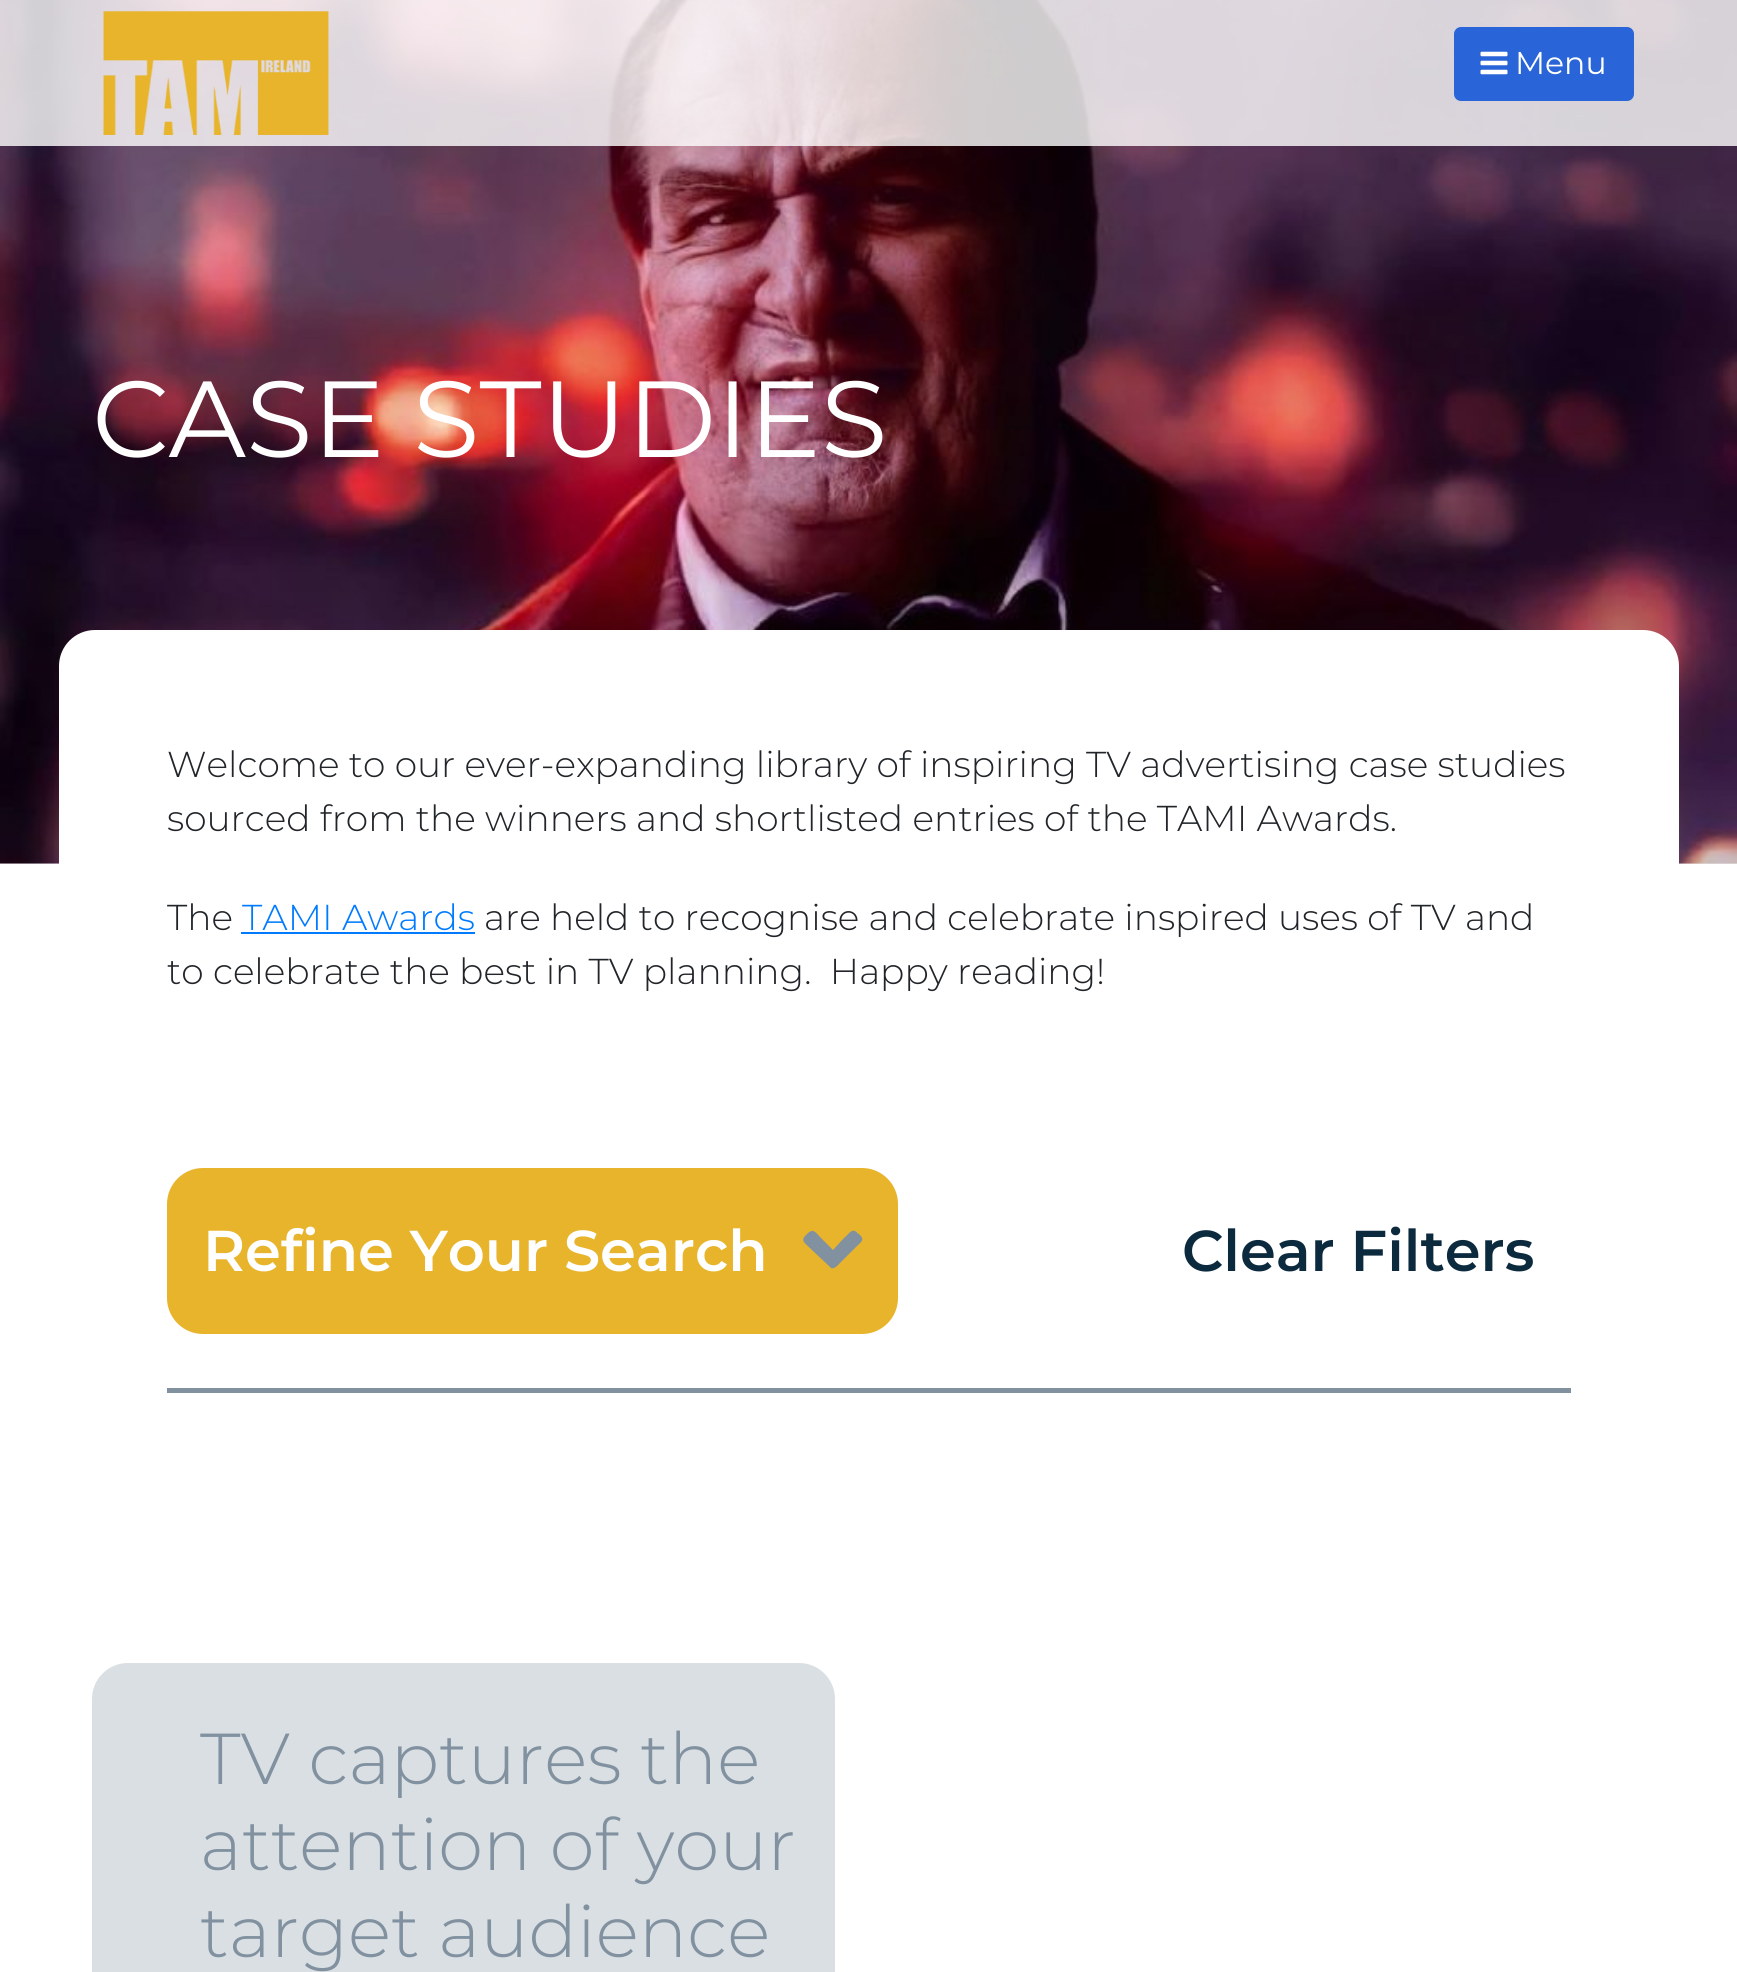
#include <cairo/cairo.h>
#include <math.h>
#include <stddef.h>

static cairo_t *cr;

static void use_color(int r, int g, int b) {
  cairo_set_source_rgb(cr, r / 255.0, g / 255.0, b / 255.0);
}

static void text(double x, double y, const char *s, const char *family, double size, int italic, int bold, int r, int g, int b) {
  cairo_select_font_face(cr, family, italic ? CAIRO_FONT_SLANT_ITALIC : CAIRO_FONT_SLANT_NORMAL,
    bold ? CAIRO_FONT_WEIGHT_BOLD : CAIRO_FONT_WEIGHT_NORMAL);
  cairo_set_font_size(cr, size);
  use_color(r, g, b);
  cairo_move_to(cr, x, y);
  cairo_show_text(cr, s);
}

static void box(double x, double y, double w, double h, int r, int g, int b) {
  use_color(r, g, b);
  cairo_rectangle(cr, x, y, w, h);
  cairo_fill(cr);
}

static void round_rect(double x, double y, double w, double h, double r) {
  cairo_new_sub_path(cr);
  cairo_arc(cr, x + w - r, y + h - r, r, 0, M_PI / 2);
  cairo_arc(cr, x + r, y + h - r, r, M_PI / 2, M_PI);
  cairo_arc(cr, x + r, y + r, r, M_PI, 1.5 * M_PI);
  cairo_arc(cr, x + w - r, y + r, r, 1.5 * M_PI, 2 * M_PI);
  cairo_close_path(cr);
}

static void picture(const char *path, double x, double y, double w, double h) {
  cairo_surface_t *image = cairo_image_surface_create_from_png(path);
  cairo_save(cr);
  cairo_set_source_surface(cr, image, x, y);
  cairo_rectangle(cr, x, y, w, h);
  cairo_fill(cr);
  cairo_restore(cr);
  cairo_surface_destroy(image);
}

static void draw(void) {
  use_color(255, 255, 255);
  cairo_paint(cr);
  box(0, 863, 1737, 1, 227, 227, 227);
  picture("img_03.png", 0, 0, 1737, 864);
  cairo_set_source_rgba(cr, 1, 1, 1, 0.8);
  cairo_rectangle(cr, 0, 0, 1737, 146);
  cairo_fill(cr);
  picture("img_01.png", 103, 11, 226, 124);
  use_color(41, 100, 216);
  round_rect(1454, 27, 180, 74, 7);
  cairo_fill(cr);
  picture("img_02.png", 1480, 51, 28, 24);
  use_color(255, 255, 255);
  round_rect(59, 630, 1620, 979, 36);
  cairo_fill(cr);
  box(241, 932, 234, 2, 0, 123, 255);
  box(167, 1388, 1404, 5, 129, 145, 160);
  use_color(231, 180, 43);
  round_rect(167, 1168, 731, 166, 36);
  cairo_fill(cr);
  use_color(129, 145, 160);
  cairo_new_path(cr);
  cairo_move_to(cr, 830, 1267);
  cairo_line_to(cr, 813, 1251);
  cairo_curve_to(cr, 804, 1242, 799, 1241, 808, 1233);
  cairo_curve_to(cr, 814, 1228, 816, 1233, 821, 1238);
  cairo_line_to(cr, 833, 1250);
  cairo_line_to(cr, 844, 1238);
  cairo_curve_to(cr, 847, 1236, 851, 1229, 855, 1231);
  cairo_line_to(cr, 860, 1235);
  cairo_curve_to(cr, 865, 1240, 861, 1242, 857, 1246);
  cairo_line_to(cr, 840, 1263);
  cairo_curve_to(cr, 838, 1265, 833, 1271, 830, 1267);
  cairo_close_path(cr);
  cairo_fill(cr);
  use_color(217, 223, 227);
  round_rect(92, 1663, 743, 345, 36);
  cairo_fill(cr);
  text(1515, 74, "Menu", "Montserrat", 31.5, 0, 0, 255, 255, 255);
  text(92, 457, "CASE STUDIES", "Montserrat", 108, 0, 0, 255, 255, 255);
  text(167, 777, "Welcome to our ever-expanding library of inspiring TV advertising case studies", "Montserrat Light", 36, 0, 0, 33, 37, 41);
  text(167, 831, "sourced from the winners and shortlisted entries of the TAMI Awards.", "Montserrat Light", 36, 0, 0, 33, 37, 41);
  text(167, 930, "The", "Montserrat Light", 36, 0, 0, 33, 37, 41);
  text(242, 930, "TAMI Awards", "Montserrat Light", 36, 0, 0, 0, 123, 255);
  text(484, 930, "are held to recognise and celebrate inspired uses of TV and", "Montserrat Light", 36, 0, 0, 33, 37, 41);
  text(167, 984, "to celebrate the best in TV planning.  Happy reading!", "Montserrat Light", 36, 0, 0, 33, 37, 41);
  text(203, 1271, "Refine Your Search", "Montserrat SemiBold", 57.5, 0, 0, 255, 255, 255);
  text(1182, 1271, "Clear Filters", "Montserrat SemiBold", 57.5, 0, 0, 12, 42, 62);
  text(200, 1784, "TV captures the", "Montserrat Light", 72, 0, 0, 129, 145, 160);
  text(200, 1870, "attention of your", "Montserrat Light", 72, 0, 0, 129, 145, 160);
  text(200, 1957, "target audience", "Montserrat Light", 72, 0, 0, 129, 145, 160);
}

int main(void) {
  cairo_surface_t *surface = cairo_image_surface_create(CAIRO_FORMAT_RGB24, 1737, 1972);
  cr = cairo_create(surface);
  cairo_font_options_t *options = cairo_font_options_create();
  cairo_font_options_set_hint_metrics(options, CAIRO_HINT_METRICS_OFF);
  cairo_font_options_set_hint_style(options, CAIRO_HINT_STYLE_NONE);
  cairo_set_font_options(cr, options);
  cairo_set_miter_limit(cr, 4);
  draw();
  cairo_surface_write_to_png(surface, "out.png");
  cairo_font_options_destroy(options);
  cairo_destroy(cr);
  cairo_surface_destroy(surface);
  return 0;
}
